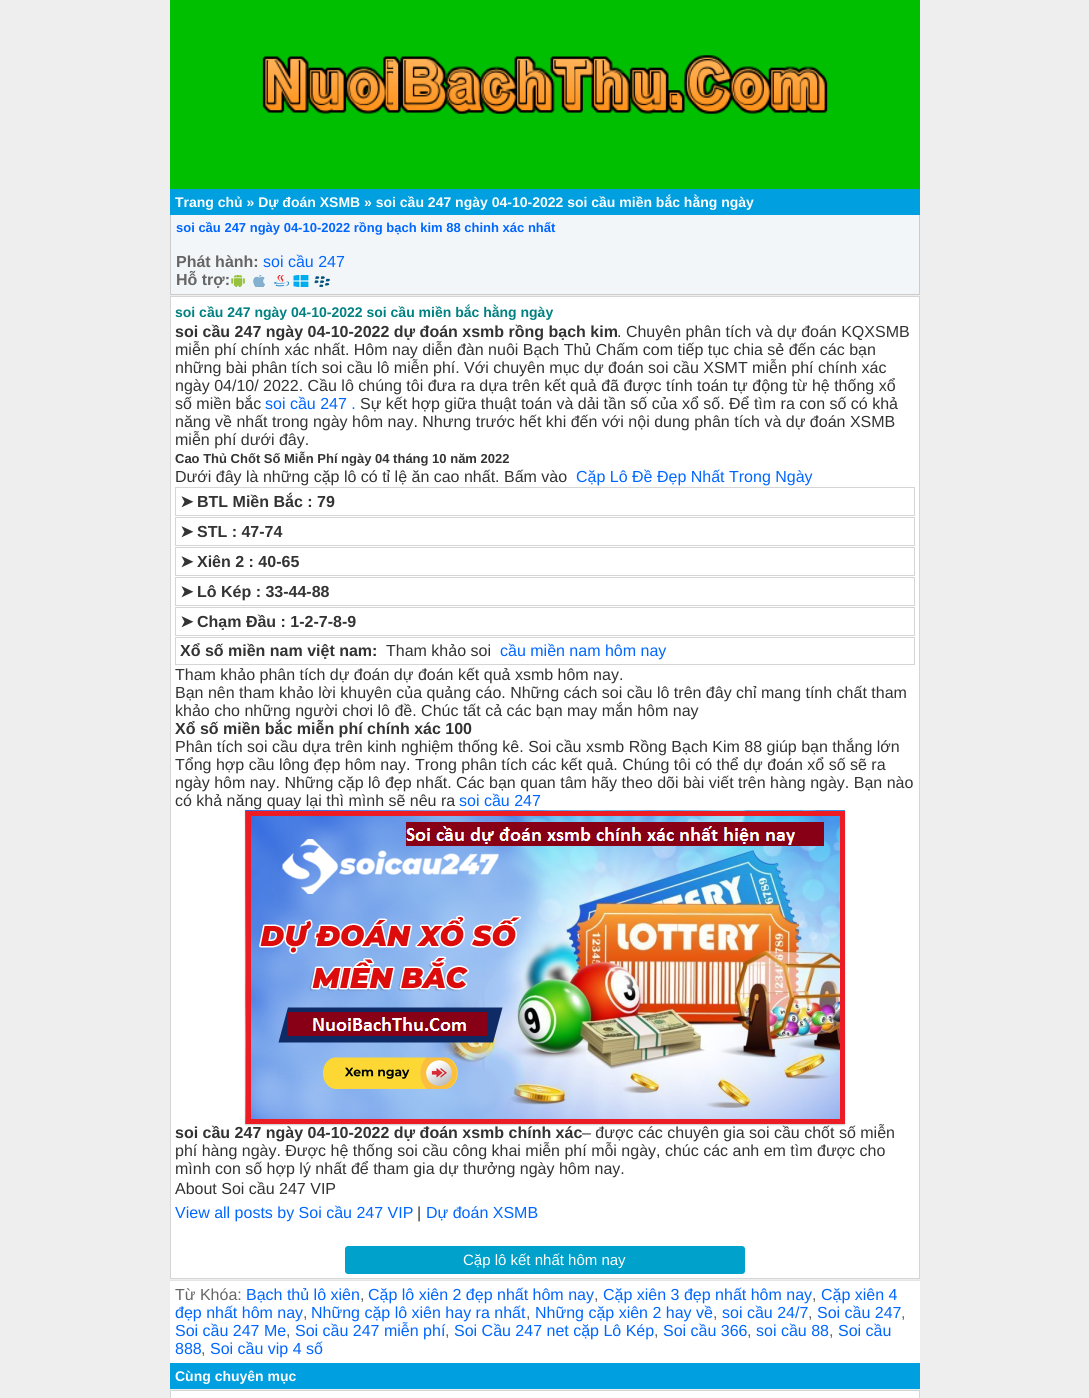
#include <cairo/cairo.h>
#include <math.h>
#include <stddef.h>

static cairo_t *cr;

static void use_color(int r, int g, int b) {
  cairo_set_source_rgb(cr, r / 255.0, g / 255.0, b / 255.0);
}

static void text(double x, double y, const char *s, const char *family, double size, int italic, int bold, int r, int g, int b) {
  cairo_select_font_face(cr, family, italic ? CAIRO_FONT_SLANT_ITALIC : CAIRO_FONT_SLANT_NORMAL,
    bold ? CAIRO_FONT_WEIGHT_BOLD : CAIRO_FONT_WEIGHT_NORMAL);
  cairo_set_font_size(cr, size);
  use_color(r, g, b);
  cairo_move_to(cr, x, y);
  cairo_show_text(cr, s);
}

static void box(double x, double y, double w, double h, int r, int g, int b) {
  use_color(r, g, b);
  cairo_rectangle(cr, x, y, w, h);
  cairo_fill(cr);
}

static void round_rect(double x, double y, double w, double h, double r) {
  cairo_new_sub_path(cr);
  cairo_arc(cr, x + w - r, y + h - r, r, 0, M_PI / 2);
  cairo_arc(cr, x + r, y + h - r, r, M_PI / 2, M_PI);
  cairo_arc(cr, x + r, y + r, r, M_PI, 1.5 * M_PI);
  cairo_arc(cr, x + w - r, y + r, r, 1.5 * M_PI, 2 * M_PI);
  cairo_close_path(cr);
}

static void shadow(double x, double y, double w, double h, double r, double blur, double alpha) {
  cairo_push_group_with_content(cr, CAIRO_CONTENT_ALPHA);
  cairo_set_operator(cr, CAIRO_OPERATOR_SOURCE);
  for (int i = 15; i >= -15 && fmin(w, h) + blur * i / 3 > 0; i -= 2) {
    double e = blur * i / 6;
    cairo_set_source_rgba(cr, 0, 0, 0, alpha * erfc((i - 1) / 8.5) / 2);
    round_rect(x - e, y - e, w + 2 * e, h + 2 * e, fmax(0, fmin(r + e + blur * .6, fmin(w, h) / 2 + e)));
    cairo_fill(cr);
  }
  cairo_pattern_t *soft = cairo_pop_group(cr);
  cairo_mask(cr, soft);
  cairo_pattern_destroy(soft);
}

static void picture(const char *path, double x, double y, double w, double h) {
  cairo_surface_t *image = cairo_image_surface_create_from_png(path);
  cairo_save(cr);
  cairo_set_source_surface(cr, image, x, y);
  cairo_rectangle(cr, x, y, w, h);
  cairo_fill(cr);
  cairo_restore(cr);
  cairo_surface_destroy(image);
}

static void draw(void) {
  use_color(238, 238, 238);
  cairo_paint(cr);
  box(170, 0, 750, 189, 0, 191, 0);
  picture("img_01.png", 262, 55, 566, 59);
  box(170, 189, 750, 26, 0, 159, 223);
  box(171, 215, 748, 79, 242, 246, 248);
  box(919, 215, 1, 80, 204, 204, 204);
  box(170, 294, 750, 1, 204, 204, 204);
  box(170, 215, 1, 80, 204, 204, 204);
  picture("img_02.png", 231, 275, 14, 12);
  picture("img_03.png", 253, 275, 12, 12);
  picture("img_04.png", 273, 275, 16, 12);
  picture("img_05.png", 293, 275, 16, 12);
  picture("img_06.png", 314, 276, 16, 11);
  use_color(255, 255, 255);
  cairo_rectangle(cr, 170.5, 296.5, 749, 982);
  cairo_fill_preserve(cr);
  use_color(213, 213, 213);
  cairo_set_line_width(cr, 1);
  cairo_stroke(cr);
  cairo_rectangle(cr, 175.5, 487.5, 739, 28);
  cairo_stroke(cr);
  cairo_rectangle(cr, 175.5, 517.5, 739, 28);
  cairo_stroke(cr);
  cairo_rectangle(cr, 175.5, 547.5, 739, 28);
  cairo_stroke(cr);
  cairo_rectangle(cr, 175.5, 577.5, 739, 28);
  cairo_stroke(cr);
  cairo_rectangle(cr, 175.5, 607.5, 739, 28);
  cairo_stroke(cr);
  cairo_rectangle(cr, 175.5, 637.5, 739, 27);
  cairo_stroke(cr);
  use_color(0, 0, 0);
  shadow(245, 811, 600, 314, 0, 0.5, 0.2);
  picture("img_07.png", 245, 810, 600, 314);
  use_color(0, 161, 203);
  round_rect(345, 1246, 400, 28, 3);
  cairo_fill(cr);
  box(170, 1281, 750, 82, 255, 255, 255);
  box(170, 1280, 750, 1, 228, 228, 228);
  box(170, 1363, 750, 26, 0, 159, 223);
  use_color(255, 255, 255);
  cairo_rectangle(cr, 170.5, 1390.5, 749, 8);
  cairo_fill_preserve(cr);
  use_color(213, 213, 213);
  cairo_stroke(cr);
  text(175, 207, "Trang chủ » Dự đoán XSMB » soi cầu 247 ngày 04-10-2022 soi cầu miền bắc hằng ngày", "Liberation Sans", 14, 0, 1, 255, 255, 255);
  text(176, 232, "soi cầu 247 ngày 04-10-2022 rồng bạch kim 88 chinh xác nhất", "Liberation Sans", 13, 0, 1, 0, 102, 255);
  text(176, 267, "Phát hành:", "Liberation Sans", 16, 0, 1, 102, 102, 102);
  text(263, 267, "soi cầu 247", "Liberation Sans", 16, 0, 0, 0, 102, 255);
  text(176, 285, "Hỗ trợ:", "Liberation Sans", 16, 0, 1, 102, 102, 102);
  text(175, 317, "soi cầu 247 ngày 04-10-2022 soi cầu miền bắc hằng ngày", "Liberation Sans", 14, 0, 1, 0, 128, 128);
  text(175, 337, "soi cầu 247 ngày 04-10-2022 dự đoán xsmb rồng bạch kim", "Liberation Sans", 16, 0, 1, 51, 51, 51);
  text(617, 337, ". Chuyên phân tích và dự đoán KQXSMB", "Liberation Sans", 16, 0, 0, 51, 51, 51);
  text(175, 355, "miễn phí chính xác nhất. Hôm nay diễn đàn nuôi Bạch Thủ Chấm com tiếp tục chia sẻ đến các bạn", "Liberation Sans", 16, 0, 0, 51, 51, 51);
  text(175, 373, "những bài phân tích soi cầu lô miễn phí. Với chuyên mục dự đoán soi cầu XSMT miễn phí chính xác", "Liberation Sans", 16, 0, 0, 51, 51, 51);
  text(175, 391, "ngày 04/10/ 2022. Cầu lô chúng tôi đưa ra dựa trên kết quả đã được tính toán tự động từ hệ thống xổ", "Liberation Sans", 16, 0, 0, 51, 51, 51);
  text(175, 409, "số miền bắc", "Liberation Sans", 16, 0, 0, 51, 51, 51);
  text(265, 409, "soi cầu 247 .", "Liberation Sans", 16, 0, 0, 0, 102, 255);
  text(360, 409, "Sự kết hợp giữa thuật toán và dải tần số của xổ số. Để tìm ra con số có khả", "Liberation Sans", 16, 0, 0, 51, 51, 51);
  text(175, 427, "năng về nhất trong ngày hôm nay. Nhưng trước hết khi đến với nội dung phân tích và dự đoán XSMB", "Liberation Sans", 16, 0, 0, 51, 51, 51);
  text(175, 445, "miễn phí dưới đây.", "Liberation Sans", 16, 0, 0, 51, 51, 51);
  text(175, 463, "Cao Thủ Chốt Số Miễn Phí ngày 04 tháng 10 năm 2022", "Liberation Sans", 13, 0, 1, 51, 51, 51);
  text(175, 482, "Dưới đây là những cặp lô có tỉ lệ ăn cao nhất. Bấm vào", "Liberation Sans", 16, 0, 0, 51, 51, 51);
  text(576, 482, "Cặp Lô Đề Đẹp Nhất Trong Ngày", "Liberation Sans", 16, 0, 0, 0, 102, 255);
  text(180, 507, "➤", "DejaVu Sans", 16, 0, 1, 51, 51, 51);
  text(197, 507, "BTL Miền Bắc : 79", "Liberation Sans", 16, 0, 1, 51, 51, 51);
  text(180, 537, "➤", "DejaVu Sans", 16, 0, 1, 51, 51, 51);
  text(197, 537, "STL : 47-74", "Liberation Sans", 16, 0, 1, 51, 51, 51);
  text(180, 567, "➤", "DejaVu Sans", 16, 0, 1, 51, 51, 51);
  text(197, 567, "Xiên 2 : 40-65", "Liberation Sans", 16, 0, 1, 51, 51, 51);
  text(180, 597, "➤", "DejaVu Sans", 16, 0, 1, 51, 51, 51);
  text(197, 597, "Lô Kép : 33-44-88", "Liberation Sans", 16, 0, 1, 51, 51, 51);
  text(180, 627, "➤", "DejaVu Sans", 16, 0, 1, 51, 51, 51);
  text(197, 627, "Chạm Đầu : 1-2-7-8-9", "Liberation Sans", 16, 0, 1, 51, 51, 51);
  text(180, 656, "Xổ số miền nam việt nam:", "Liberation Sans", 16, 0, 1, 51, 51, 51);
  text(386, 656, "Tham khảo soi", "Liberation Sans", 16, 0, 0, 51, 51, 51);
  text(500, 656, "cầu miền nam hôm nay", "Liberation Sans", 16, 0, 0, 0, 102, 255);
  text(175, 680, "Tham khảo phân tích dự đoán dự đoán kết quả xsmb hôm nay.", "Liberation Sans", 16, 0, 0, 51, 51, 51);
  text(175, 698, "Bạn nên tham khảo lời khuyên của quảng cáo. Những cách soi cầu lô trên đây chỉ mang tính chất tham", "Liberation Sans", 16, 0, 0, 51, 51, 51);
  text(175, 716, "khảo cho những người chơi lô đề. Chúc tất cả các bạn may mắn hôm nay", "Liberation Sans", 16, 0, 0, 51, 51, 51);
  text(175, 734, "Xổ số miền bắc miễn phí chính xác 100", "Liberation Sans", 16, 0, 1, 51, 51, 51);
  text(175, 752, "Phân tích soi cầu dựa trên kinh nghiệm thống kê. Soi cầu xsmb Rồng Bạch Kim 88 giúp bạn thắng lớn", "Liberation Sans", 16, 0, 0, 51, 51, 51);
  text(175, 770, "Tổng hợp cầu lông đẹp hôm nay. Trong phân tích các kết quả. Chúng tôi có thể dự đoán xổ số sẽ ra", "Liberation Sans", 16, 0, 0, 51, 51, 51);
  text(175, 788, "ngày hôm nay. Những cặp lô đẹp nhất. Các bạn quan tâm hãy theo dõi bài viết trên hàng ngày. Bạn nào", "Liberation Sans", 16, 0, 0, 51, 51, 51);
  text(175, 806, "có khả năng quay lại thì mình sẽ nêu ra", "Liberation Sans", 16, 0, 0, 51, 51, 51);
  text(459, 806, "soi cầu 247", "Liberation Sans", 16, 0, 0, 0, 102, 255);
  text(175, 1138, "soi cầu 247 ngày 04-10-2022 dự đoán xsmb chính xác", "Liberation Sans", 16, 0, 1, 51, 51, 51);
  text(582, 1138, "– được các chuyên gia soi cầu chốt số miễn", "Liberation Sans", 16, 0, 0, 51, 51, 51);
  text(175, 1156, "phí hàng ngày. Được hệ thống soi cầu công khai miễn phí mỗi ngày, chúc các anh em tìm được cho", "Liberation Sans", 16, 0, 0, 51, 51, 51);
  text(175, 1174, "mình con số hợp lý nhất để tham gia dự thưởng ngày hôm nay.", "Liberation Sans", 16, 0, 0, 51, 51, 51);
  text(175, 1194, "About Soi cầu 247 VIP", "Liberation Sans", 16, 0, 0, 51, 51, 51);
  text(175, 1218, "View all posts by Soi cầu 247 VIP", "Liberation Sans", 16, 0, 0, 0, 102, 255);
  text(417, 1218, "|", "Liberation Sans", 16, 0, 0, 51, 51, 51);
  text(426, 1218, "Dự đoán XSMB", "Liberation Sans", 16, 0, 0, 0, 102, 255);
  text(463, 1265, "Cặp lô kết nhất hôm nay", "Liberation Sans", 15, 0, 0, 255, 255, 255);
  text(175, 1300, "Từ Khóa:", "Liberation Sans", 16, 0, 0, 102, 102, 102);
  text(246, 1300, "Bạch thủ lô xiên", "Liberation Sans", 16, 0, 0, 0, 102, 255);
  text(360, 1300, ",", "Liberation Sans", 16, 0, 0, 102, 102, 102);
  text(368, 1300, "Cặp lô xiên 2 đẹp nhất hôm nay", "Liberation Sans", 16, 0, 0, 0, 102, 255);
  text(594, 1300, ",", "Liberation Sans", 16, 0, 0, 102, 102, 102);
  text(603, 1300, "Cặp xiên 3 đẹp nhất hôm nay", "Liberation Sans", 16, 0, 0, 0, 102, 255);
  text(812, 1300, ",", "Liberation Sans", 16, 0, 0, 102, 102, 102);
  text(821, 1300, "Cặp xiên 4", "Liberation Sans", 16, 0, 0, 0, 102, 255);
  text(175, 1318, "đẹp nhất hôm nay", "Liberation Sans", 16, 0, 0, 0, 102, 255);
  text(303, 1318, ",", "Liberation Sans", 16, 0, 0, 102, 102, 102);
  text(311, 1318, "Những cặp lô xiên hay ra nhất", "Liberation Sans", 16, 0, 0, 0, 102, 255);
  text(526, 1318, ",", "Liberation Sans", 16, 0, 0, 102, 102, 102);
  text(535, 1318, "Những cặp xiên 2 hay về", "Liberation Sans", 16, 0, 0, 0, 102, 255);
  text(713, 1318, ",", "Liberation Sans", 16, 0, 0, 102, 102, 102);
  text(722, 1318, "soi cầu 24/7", "Liberation Sans", 16, 0, 0, 0, 102, 255);
  text(808, 1318, ",", "Liberation Sans", 16, 0, 0, 102, 102, 102);
  text(817, 1318, "Soi cầu 247", "Liberation Sans", 16, 0, 0, 0, 102, 255);
  text(901, 1318, ",", "Liberation Sans", 16, 0, 0, 102, 102, 102);
  text(175, 1336, "Soi cầu 247 Me", "Liberation Sans", 16, 0, 0, 0, 102, 255);
  text(286, 1336, ",", "Liberation Sans", 16, 0, 0, 102, 102, 102);
  text(295, 1336, "Soi cầu 247 miễn phí", "Liberation Sans", 16, 0, 0, 0, 102, 255);
  text(445, 1336, ",", "Liberation Sans", 16, 0, 0, 102, 102, 102);
  text(454, 1336, "Soi Cầu 247 net cặp Lô Kép", "Liberation Sans", 16, 0, 0, 0, 102, 255);
  text(654, 1336, ",", "Liberation Sans", 16, 0, 0, 102, 102, 102);
  text(663, 1336, "Soi cầu 366", "Liberation Sans", 16, 0, 0, 0, 102, 255);
  text(747, 1336, ",", "Liberation Sans", 16, 0, 0, 102, 102, 102);
  text(756, 1336, "soi cầu 88", "Liberation Sans", 16, 0, 0, 0, 102, 255);
  text(829, 1336, ",", "Liberation Sans", 16, 0, 0, 102, 102, 102);
  text(838, 1336, "Soi cầu", "Liberation Sans", 16, 0, 0, 0, 102, 255);
  text(175, 1354, "888", "Liberation Sans", 16, 0, 0, 0, 102, 255);
  text(201, 1354, ",", "Liberation Sans", 16, 0, 0, 102, 102, 102);
  text(210, 1354, "Soi cầu vip 4 số", "Liberation Sans", 16, 0, 0, 0, 102, 255);
  text(175, 1381, "Cùng chuyên mục", "Liberation Sans", 14, 0, 1, 255, 255, 255);
}

int main(void) {
  cairo_surface_t *surface = cairo_image_surface_create(CAIRO_FORMAT_RGB24, 1089, 1398);
  cr = cairo_create(surface);
  cairo_font_options_t *options = cairo_font_options_create();
  cairo_font_options_set_hint_metrics(options, CAIRO_HINT_METRICS_OFF);
  cairo_font_options_set_hint_style(options, CAIRO_HINT_STYLE_NONE);
  cairo_set_font_options(cr, options);
  cairo_set_miter_limit(cr, 4);
  draw();
  cairo_surface_write_to_png(surface, "out.png");
  cairo_font_options_destroy(options);
  cairo_destroy(cr);
  cairo_surface_destroy(surface);
  return 0;
}
